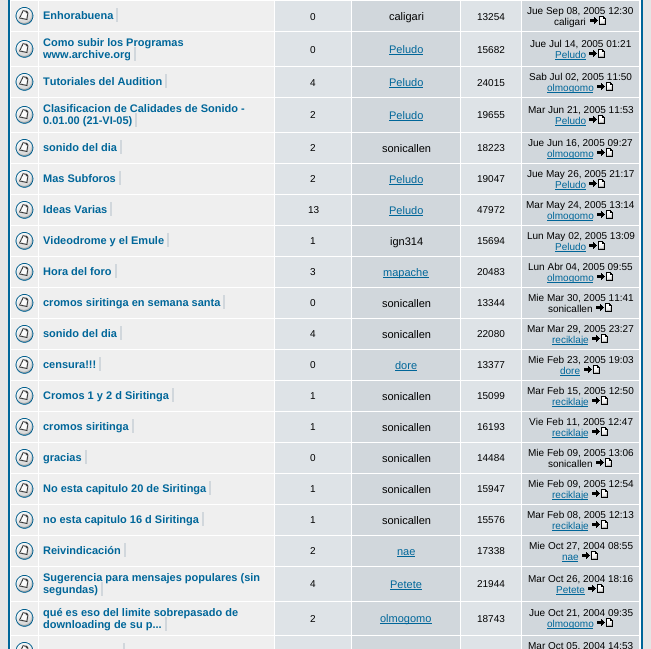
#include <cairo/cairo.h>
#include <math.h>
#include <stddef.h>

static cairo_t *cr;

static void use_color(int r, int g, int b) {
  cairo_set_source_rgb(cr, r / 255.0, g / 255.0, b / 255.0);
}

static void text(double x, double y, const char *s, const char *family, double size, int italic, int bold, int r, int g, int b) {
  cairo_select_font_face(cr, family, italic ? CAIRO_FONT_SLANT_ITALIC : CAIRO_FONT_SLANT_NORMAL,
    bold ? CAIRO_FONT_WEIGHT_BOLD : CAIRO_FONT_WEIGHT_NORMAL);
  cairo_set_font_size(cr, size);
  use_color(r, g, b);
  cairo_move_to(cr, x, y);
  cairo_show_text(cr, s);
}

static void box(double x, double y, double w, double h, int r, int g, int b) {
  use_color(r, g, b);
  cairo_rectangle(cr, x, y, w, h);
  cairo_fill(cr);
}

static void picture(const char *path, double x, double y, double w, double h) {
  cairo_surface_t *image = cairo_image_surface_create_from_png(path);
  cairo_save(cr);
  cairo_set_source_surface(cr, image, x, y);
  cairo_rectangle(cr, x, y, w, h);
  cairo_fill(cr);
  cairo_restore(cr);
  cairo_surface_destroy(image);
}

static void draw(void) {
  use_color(229, 229, 229);
  cairo_paint(cr);
  use_color(255, 255, 255);
  cairo_rectangle(cr, 9, -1, 633, 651);
  cairo_fill_preserve(cr);
  use_color(0, 102, 153);
  cairo_stroke(cr);
  box(11, 1, 27, 30, 239, 239, 239);
  picture("img_01.png", 15, 7, 19, 18);
  box(39, 1, 235, 30, 239, 239, 239);
  box(116, 8, 2, 14, 209, 215, 220);
  box(275, 1, 76, 30, 222, 227, 231);
  box(352, 1, 108, 30, 209, 215, 220);
  box(461, 1, 60, 30, 222, 227, 231);
  box(522, 1, 117, 30, 209, 215, 220);
  box(11, 32, 27, 34, 239, 239, 239);
  picture("img_01.png", 15, 40, 19, 18);
  box(39, 32, 235, 34, 239, 239, 239);
  box(275, 32, 76, 34, 222, 227, 231);
  box(352, 32, 108, 34, 209, 215, 220);
  box(389, 54, 34, 1, 0, 102, 153);
  box(461, 32, 60, 34, 222, 227, 231);
  box(522, 32, 117, 34, 209, 215, 220);
  box(555, 59, 31, 1, 0, 102, 153);
  picture("img_02.png", 589, 49, 16, 9);
  box(11, 67, 27, 30, 239, 239, 239);
  picture("img_01.png", 15, 73, 19, 18);
  box(39, 67, 235, 30, 239, 239, 239);
  box(165, 74, 2, 14, 209, 215, 220);
  box(275, 67, 76, 30, 222, 227, 231);
  box(352, 67, 108, 30, 209, 215, 220);
  box(389, 87, 34, 1, 0, 102, 153);
  box(461, 67, 60, 30, 222, 227, 231);
  box(522, 67, 117, 30, 209, 215, 220);
  box(547, 92, 46, 1, 0, 102, 153);
  picture("img_02.png", 597, 82, 16, 9);
  box(11, 98, 27, 34, 239, 239, 239);
  picture("img_01.png", 15, 106, 19, 18);
  box(39, 98, 235, 34, 239, 239, 239);
  box(135, 113, 2, 14, 209, 215, 220);
  box(275, 98, 76, 34, 222, 227, 231);
  box(352, 98, 108, 34, 209, 215, 220);
  box(389, 120, 34, 1, 0, 102, 153);
  box(461, 98, 60, 34, 222, 227, 231);
  box(522, 98, 117, 34, 209, 215, 220);
  box(555, 125, 31, 1, 0, 102, 153);
  picture("img_02.png", 589, 115, 16, 9);
  box(11, 133, 27, 30, 239, 239, 239);
  picture("img_01.png", 15, 139, 19, 18);
  box(39, 133, 235, 30, 239, 239, 239);
  box(120, 140, 2, 14, 209, 215, 220);
  box(275, 133, 76, 30, 222, 227, 231);
  box(352, 133, 108, 30, 209, 215, 220);
  box(461, 133, 60, 30, 222, 227, 231);
  box(522, 133, 117, 30, 209, 215, 220);
  box(547, 158, 46, 1, 0, 102, 153);
  picture("img_02.png", 597, 148, 16, 9);
  box(11, 164, 27, 30, 239, 239, 239);
  picture("img_01.png", 15, 170, 19, 18);
  box(39, 164, 235, 30, 239, 239, 239);
  box(119, 171, 2, 14, 209, 215, 220);
  box(275, 164, 76, 30, 222, 227, 231);
  box(352, 164, 108, 30, 209, 215, 220);
  box(389, 184, 34, 1, 0, 102, 153);
  box(461, 164, 60, 30, 222, 227, 231);
  box(522, 164, 117, 30, 209, 215, 220);
  box(555, 189, 31, 1, 0, 102, 153);
  box(11, 195, 27, 30, 239, 239, 239);
  picture("img_01.png", 15, 201, 19, 18);
  box(39, 195, 235, 30, 239, 239, 239);
  box(110, 202, 2, 14, 209, 215, 220);
  box(275, 195, 76, 30, 222, 227, 231);
  box(352, 195, 108, 30, 209, 215, 220);
  box(389, 215, 34, 1, 0, 102, 153);
  box(461, 195, 60, 30, 222, 227, 231);
  box(522, 195, 117, 30, 209, 215, 220);
  box(547, 220, 46, 1, 0, 102, 153);
  box(11, 226, 27, 30, 239, 239, 239);
  picture("img_01.png", 15, 232, 19, 18);
  box(39, 226, 235, 30, 239, 239, 239);
  box(167, 233, 2, 14, 209, 215, 220);
  box(275, 226, 76, 30, 222, 227, 231);
  box(352, 226, 108, 30, 209, 215, 220);
  box(461, 226, 60, 30, 222, 227, 231);
  box(522, 226, 117, 30, 209, 215, 220);
  box(555, 251, 31, 1, 0, 102, 153);
  box(11, 257, 27, 30, 239, 239, 239);
  picture("img_01.png", 15, 263, 19, 18);
  box(39, 257, 235, 30, 239, 239, 239);
  box(115, 264, 2, 14, 209, 215, 220);
  box(275, 257, 76, 30, 222, 227, 231);
  box(352, 257, 108, 30, 209, 215, 220);
  box(383, 277, 46, 1, 0, 102, 153);
  box(461, 257, 60, 30, 222, 227, 231);
  box(522, 257, 117, 30, 209, 215, 220);
  box(547, 282, 46, 1, 0, 102, 153);
  picture("img_02.png", 597, 272, 16, 9);
  box(11, 288, 27, 30, 239, 239, 239);
  picture("img_01.png", 15, 294, 19, 18);
  box(39, 288, 235, 30, 239, 239, 239);
  box(223, 295, 2, 14, 209, 215, 220);
  box(275, 288, 76, 30, 222, 227, 231);
  box(352, 288, 108, 30, 209, 215, 220);
  box(461, 288, 60, 30, 222, 227, 231);
  box(522, 288, 117, 30, 209, 215, 220);
  picture("img_02.png", 596, 303, 16, 9);
  box(11, 319, 27, 30, 239, 239, 239);
  picture("img_01.png", 15, 325, 19, 18);
  box(39, 319, 235, 30, 239, 239, 239);
  box(120, 326, 2, 14, 209, 215, 220);
  box(275, 319, 76, 30, 222, 227, 231);
  box(352, 319, 108, 30, 209, 215, 220);
  box(461, 319, 60, 30, 222, 227, 231);
  box(522, 319, 117, 30, 209, 215, 220);
  box(552, 344, 36, 1, 0, 102, 153);
  picture("img_02.png", 592, 334, 16, 9);
  box(11, 350, 27, 30, 239, 239, 239);
  picture("img_01.png", 15, 356, 19, 18);
  box(39, 350, 235, 30, 239, 239, 239);
  box(99, 357, 2, 14, 209, 215, 220);
  box(275, 350, 76, 30, 222, 227, 231);
  box(352, 350, 108, 30, 209, 215, 220);
  box(395, 370, 22, 1, 0, 102, 153);
  box(461, 350, 60, 30, 222, 227, 231);
  box(522, 350, 117, 30, 209, 215, 220);
  box(560, 375, 20, 1, 0, 102, 153);
  picture("img_02.png", 584, 365, 16, 9);
  box(11, 381, 27, 30, 239, 239, 239);
  picture("img_01.png", 15, 387, 19, 18);
  box(39, 381, 235, 30, 239, 239, 239);
  box(172, 388, 2, 14, 209, 215, 220);
  box(275, 381, 76, 30, 222, 227, 231);
  box(352, 381, 108, 30, 209, 215, 220);
  box(461, 381, 60, 30, 222, 227, 231);
  box(522, 381, 117, 30, 209, 215, 220);
  box(552, 406, 36, 1, 0, 102, 153);
  picture("img_02.png", 592, 396, 16, 9);
  box(11, 412, 27, 30, 239, 239, 239);
  picture("img_01.png", 15, 418, 19, 18);
  box(39, 412, 235, 30, 239, 239, 239);
  box(132, 419, 2, 14, 209, 215, 220);
  box(275, 412, 76, 30, 222, 227, 231);
  box(352, 412, 108, 30, 209, 215, 220);
  box(461, 412, 60, 30, 222, 227, 231);
  box(522, 412, 117, 30, 209, 215, 220);
  box(552, 437, 36, 1, 0, 102, 153);
  picture("img_02.png", 592, 427, 16, 9);
  box(11, 443, 27, 30, 239, 239, 239);
  picture("img_01.png", 15, 449, 19, 18);
  box(39, 443, 235, 30, 239, 239, 239);
  box(85, 450, 2, 14, 209, 215, 220);
  box(275, 443, 76, 30, 222, 227, 231);
  box(352, 443, 108, 30, 209, 215, 220);
  box(461, 443, 60, 30, 222, 227, 231);
  box(522, 443, 117, 30, 209, 215, 220);
  picture("img_02.png", 596, 458, 16, 9);
  box(11, 474, 27, 30, 239, 239, 239);
  picture("img_01.png", 15, 480, 19, 18);
  box(39, 474, 235, 30, 239, 239, 239);
  box(209, 481, 2, 14, 209, 215, 220);
  box(275, 474, 76, 30, 222, 227, 231);
  box(352, 474, 108, 30, 209, 215, 220);
  box(461, 474, 60, 30, 222, 227, 231);
  box(522, 474, 117, 30, 209, 215, 220);
  box(552, 499, 36, 1, 0, 102, 153);
  picture("img_02.png", 592, 489, 16, 9);
  box(11, 505, 27, 30, 239, 239, 239);
  picture("img_01.png", 15, 511, 19, 18);
  box(39, 505, 235, 30, 239, 239, 239);
  box(202, 512, 2, 14, 209, 215, 220);
  box(275, 505, 76, 30, 222, 227, 231);
  box(352, 505, 108, 30, 209, 215, 220);
  box(461, 505, 60, 30, 222, 227, 231);
  box(522, 505, 117, 30, 209, 215, 220);
  box(552, 530, 36, 1, 0, 102, 153);
  picture("img_02.png", 592, 520, 16, 9);
  box(11, 536, 27, 30, 239, 239, 239);
  picture("img_01.png", 15, 542, 19, 18);
  box(39, 536, 235, 30, 239, 239, 239);
  box(124, 543, 2, 14, 209, 215, 220);
  box(275, 536, 76, 30, 222, 227, 231);
  box(352, 536, 108, 30, 209, 215, 220);
  box(397, 556, 18, 1, 0, 102, 153);
  box(461, 536, 60, 30, 222, 227, 231);
  box(522, 536, 117, 30, 209, 215, 220);
  box(562, 561, 16, 1, 0, 102, 153);
  picture("img_02.png", 582, 551, 16, 9);
  box(11, 567, 27, 34, 239, 239, 239);
  picture("img_01.png", 15, 575, 19, 18);
  box(39, 567, 235, 34, 239, 239, 239);
  box(275, 567, 76, 34, 222, 227, 231);
  box(352, 567, 108, 34, 209, 215, 220);
  box(390, 589, 32, 1, 0, 102, 153);
  box(461, 567, 60, 34, 222, 227, 231);
  box(522, 567, 117, 34, 209, 215, 220);
  box(556, 594, 29, 1, 0, 102, 153);
  picture("img_02.png", 588, 584, 16, 9);
  box(11, 602, 27, 33, 239, 239, 239);
  picture("img_01.png", 15, 609, 19, 18);
  box(39, 602, 235, 33, 239, 239, 239);
  box(275, 602, 76, 33, 222, 227, 231);
  box(352, 602, 108, 33, 209, 215, 220);
  box(380, 623, 52, 1, 0, 102, 153);
  box(461, 602, 60, 33, 222, 227, 231);
  box(522, 602, 117, 33, 209, 215, 220);
  box(547, 628, 46, 1, 0, 102, 153);
  picture("img_02.png", 597, 618, 16, 9);
  box(11, 636, 27, 13, 239, 239, 239);
  picture("img_03.png", 15, 642, 19, 7);
  box(39, 636, 235, 13, 239, 239, 239);
  box(123, 643, 2, 6, 209, 215, 220);
  box(275, 636, 76, 13, 222, 227, 231);
  box(352, 636, 108, 13, 209, 215, 220);
  box(461, 636, 60, 13, 222, 227, 231);
  box(522, 636, 117, 13, 209, 215, 220);
  text(43, 19, "Enhorabuena", "Liberation Sans", 11, 0, 1, 0, 102, 153);
  text(310, 20, "0", "Liberation Sans", 10, 0, 0, 0, 0, 0);
  text(389, 20, "caligari", "Liberation Sans", 11, 0, 0, 0, 0, 0);
  text(477, 20, "13254", "Liberation Sans", 10, 0, 0, 0, 0, 0);
  text(527, 14, "Jue Sep 08, 2005 12:30", "Liberation Sans", 10, 0, 0, 0, 0, 0);
  text(554, 25, "caligari", "Liberation Sans", 10, 0, 0, 0, 0, 0);
  picture("img_02.png", 590, 16, 16, 9);
  text(43, 46, "Como subir los Programas", "Liberation Sans", 11, 0, 1, 0, 102, 153);
  text(43, 58, "www.archive.org", "Liberation Sans", 11, 0, 1, 0, 102, 153);
  box(134, 47, 2, 14, 209, 215, 220);
  text(310, 53, "0", "Liberation Sans", 10, 0, 0, 0, 0, 0);
  text(389, 53, "Peludo", "Liberation Sans", 11, 0, 0, 0, 102, 153);
  text(477, 53, "15682", "Liberation Sans", 10, 0, 0, 0, 0, 0);
  text(530, 47, "Jue Jul 14, 2005 01:21", "Liberation Sans", 10, 0, 0, 0, 0, 0);
  text(555, 58, "Peludo", "Liberation Sans", 10, 0, 0, 0, 102, 153);
  text(43, 85, "Tutoriales del Audition", "Liberation Sans", 11, 0, 1, 0, 102, 153);
  text(310, 86, "4", "Liberation Sans", 10, 0, 0, 0, 0, 0);
  text(389, 86, "Peludo", "Liberation Sans", 11, 0, 0, 0, 102, 153);
  text(477, 86, "24015", "Liberation Sans", 10, 0, 0, 0, 0, 0);
  text(529, 80, "Sab Jul 02, 2005 11:50", "Liberation Sans", 10, 0, 0, 0, 0, 0);
  text(547, 91, "olmogomo", "Liberation Sans", 10, 0, 0, 0, 102, 153);
  text(43, 112, "Clasificacion de Calidades de Sonido -", "Liberation Sans", 11, 0, 1, 0, 102, 153);
  text(43, 124, "0.01.00 (21-VI-05)", "Liberation Sans", 11, 0, 1, 0, 102, 153);
  text(310, 118, "2", "Liberation Sans", 10, 0, 0, 0, 0, 0);
  text(389, 119, "Peludo", "Liberation Sans", 11, 0, 0, 0, 102, 153);
  text(477, 118, "19655", "Liberation Sans", 10, 0, 0, 0, 0, 0);
  text(528, 113, "Mar Jun 21, 2005 11:53", "Liberation Sans", 10, 0, 0, 0, 0, 0);
  text(555, 124, "Peludo", "Liberation Sans", 10, 0, 0, 0, 102, 153);
  text(43, 151, "sonido del dia", "Liberation Sans", 11, 0, 1, 0, 102, 153);
  text(310, 151, "2", "Liberation Sans", 10, 0, 0, 0, 0, 0);
  text(382, 152, "sonicallen", "Liberation Sans", 11, 0, 0, 0, 0, 0);
  text(477, 151, "18223", "Liberation Sans", 10, 0, 0, 0, 0, 0);
  text(528, 146, "Jue Jun 16, 2005 09:27", "Liberation Sans", 10, 0, 0, 0, 0, 0);
  text(547, 157, "olmogomo", "Liberation Sans", 10, 0, 0, 0, 102, 153);
  text(43, 182, "Mas Subforos", "Liberation Sans", 11, 0, 1, 0, 102, 153);
  text(310, 182, "2", "Liberation Sans", 10, 0, 0, 0, 0, 0);
  text(389, 183, "Peludo", "Liberation Sans", 11, 0, 0, 0, 102, 153);
  text(477, 182, "19047", "Liberation Sans", 10, 0, 0, 0, 0, 0);
  text(527, 177, "Jue May 26, 2005 21:17", "Liberation Sans", 10, 0, 0, 0, 0, 0);
  text(555, 188, "Peludo", "Liberation Sans", 10, 0, 0, 0, 102, 153);
  picture("img_02.png", 589, 179, 16, 9);
  text(43, 213, "Ideas Varias", "Liberation Sans", 11, 0, 1, 0, 102, 153);
  text(308, 213, "13", "Liberation Sans", 10, 0, 0, 0, 0, 0);
  text(389, 214, "Peludo", "Liberation Sans", 11, 0, 0, 0, 102, 153);
  text(477, 213, "47972", "Liberation Sans", 10, 0, 0, 0, 0, 0);
  text(526, 208, "Mar May 24, 2005 13:14", "Liberation Sans", 10, 0, 0, 0, 0, 0);
  text(547, 219, "olmogomo", "Liberation Sans", 10, 0, 0, 0, 102, 153);
  picture("img_02.png", 597, 210, 16, 9);
  text(43, 244, "Videodrome y el Emule", "Liberation Sans", 11, 0, 1, 0, 102, 153);
  text(310, 244, "1", "Liberation Sans", 10, 0, 0, 0, 0, 0);
  text(390, 245, "ign314", "Liberation Sans", 11, 0, 0, 0, 0, 0);
  text(477, 244, "15694", "Liberation Sans", 10, 0, 0, 0, 0, 0);
  text(527, 239, "Lun May 02, 2005 13:09", "Liberation Sans", 10, 0, 0, 0, 0, 0);
  text(555, 250, "Peludo", "Liberation Sans", 10, 0, 0, 0, 102, 153);
  picture("img_02.png", 589, 241, 16, 9);
  text(43, 275, "Hora del foro", "Liberation Sans", 11, 0, 1, 0, 102, 153);
  text(310, 275, "3", "Liberation Sans", 10, 0, 0, 0, 0, 0);
  text(383, 276, "mapache", "Liberation Sans", 11, 0, 0, 0, 102, 153);
  text(477, 275, "20483", "Liberation Sans", 10, 0, 0, 0, 0, 0);
  text(528, 270, "Lun Abr 04, 2005 09:55", "Liberation Sans", 10, 0, 0, 0, 0, 0);
  text(547, 281, "olmogomo", "Liberation Sans", 10, 0, 0, 0, 102, 153);
  text(43, 306, "cromos siritinga en semana santa", "Liberation Sans", 11, 0, 1, 0, 102, 153);
  text(310, 306, "0", "Liberation Sans", 10, 0, 0, 0, 0, 0);
  text(382, 307, "sonicallen", "Liberation Sans", 11, 0, 0, 0, 0, 0);
  text(477, 306, "13344", "Liberation Sans", 10, 0, 0, 0, 0, 0);
  text(528, 301, "Mie Mar 30, 2005 11:41", "Liberation Sans", 10, 0, 0, 0, 0, 0);
  text(548, 312, "sonicallen", "Liberation Sans", 10, 0, 0, 0, 0, 0);
  text(43, 337, "sonido del dia", "Liberation Sans", 11, 0, 1, 0, 102, 153);
  text(310, 337, "4", "Liberation Sans", 10, 0, 0, 0, 0, 0);
  text(382, 338, "sonicallen", "Liberation Sans", 11, 0, 0, 0, 0, 0);
  text(477, 337, "22080", "Liberation Sans", 10, 0, 0, 0, 0, 0);
  text(527, 332, "Mar Mar 29, 2005 23:27", "Liberation Sans", 10, 0, 0, 0, 0, 0);
  text(552, 343, "reciklaje", "Liberation Sans", 10, 0, 0, 0, 102, 153);
  text(43, 368, "censura!!!", "Liberation Sans", 11, 0, 1, 0, 102, 153);
  text(310, 368, "0", "Liberation Sans", 10, 0, 0, 0, 0, 0);
  text(395, 369, "dore", "Liberation Sans", 11, 0, 0, 0, 102, 153);
  text(477, 368, "13377", "Liberation Sans", 10, 0, 0, 0, 0, 0);
  text(528, 363, "Mie Feb 23, 2005 19:03", "Liberation Sans", 10, 0, 0, 0, 0, 0);
  text(560, 374, "dore", "Liberation Sans", 10, 0, 0, 0, 102, 153);
  text(43, 399, "Cromos 1 y 2 d Siritinga", "Liberation Sans", 11, 0, 1, 0, 102, 153);
  text(310, 399, "1", "Liberation Sans", 10, 0, 0, 0, 0, 0);
  text(382, 400, "sonicallen", "Liberation Sans", 11, 0, 0, 0, 0, 0);
  text(477, 399, "15099", "Liberation Sans", 10, 0, 0, 0, 0, 0);
  text(527, 394, "Mar Feb 15, 2005 12:50", "Liberation Sans", 10, 0, 0, 0, 0, 0);
  text(552, 405, "reciklaje", "Liberation Sans", 10, 0, 0, 0, 102, 153);
  text(43, 430, "cromos siritinga", "Liberation Sans", 11, 0, 1, 0, 102, 153);
  text(310, 430, "1", "Liberation Sans", 10, 0, 0, 0, 0, 0);
  text(382, 431, "sonicallen", "Liberation Sans", 11, 0, 0, 0, 0, 0);
  text(477, 430, "16193", "Liberation Sans", 10, 0, 0, 0, 0, 0);
  text(529, 425, "Vie Feb 11, 2005 12:47", "Liberation Sans", 10, 0, 0, 0, 0, 0);
  text(552, 436, "reciklaje", "Liberation Sans", 10, 0, 0, 0, 102, 153);
  text(43, 461, "gracias", "Liberation Sans", 11, 0, 1, 0, 102, 153);
  text(310, 461, "0", "Liberation Sans", 10, 0, 0, 0, 0, 0);
  text(382, 462, "sonicallen", "Liberation Sans", 11, 0, 0, 0, 0, 0);
  text(477, 461, "14484", "Liberation Sans", 10, 0, 0, 0, 0, 0);
  text(528, 456, "Mie Feb 09, 2005 13:06", "Liberation Sans", 10, 0, 0, 0, 0, 0);
  text(548, 467, "sonicallen", "Liberation Sans", 10, 0, 0, 0, 0, 0);
  text(43, 492, "No esta capitulo 20 de Siritinga", "Liberation Sans", 11, 0, 1, 0, 102, 153);
  text(310, 492, "1", "Liberation Sans", 10, 0, 0, 0, 0, 0);
  text(382, 493, "sonicallen", "Liberation Sans", 11, 0, 0, 0, 0, 0);
  text(477, 492, "15947", "Liberation Sans", 10, 0, 0, 0, 0, 0);
  text(528, 487, "Mie Feb 09, 2005 12:54", "Liberation Sans", 10, 0, 0, 0, 0, 0);
  text(552, 498, "reciklaje", "Liberation Sans", 10, 0, 0, 0, 102, 153);
  text(43, 523, "no esta capitulo 16 d Siritinga", "Liberation Sans", 11, 0, 1, 0, 102, 153);
  text(310, 523, "1", "Liberation Sans", 10, 0, 0, 0, 0, 0);
  text(382, 524, "sonicallen", "Liberation Sans", 11, 0, 0, 0, 0, 0);
  text(477, 523, "15576", "Liberation Sans", 10, 0, 0, 0, 0, 0);
  text(527, 518, "Mar Feb 08, 2005 12:13", "Liberation Sans", 10, 0, 0, 0, 0, 0);
  text(552, 529, "reciklaje", "Liberation Sans", 10, 0, 0, 0, 102, 153);
  text(43, 554, "Reivindicación", "Liberation Sans", 11, 0, 1, 0, 102, 153);
  text(310, 554, "2", "Liberation Sans", 10, 0, 0, 0, 0, 0);
  text(397, 555, "nae", "Liberation Sans", 11, 0, 0, 0, 102, 153);
  text(477, 554, "17338", "Liberation Sans", 10, 0, 0, 0, 0, 0);
  text(529, 549, "Mie Oct 27, 2004 08:55", "Liberation Sans", 10, 0, 0, 0, 0, 0);
  text(562, 560, "nae", "Liberation Sans", 10, 0, 0, 0, 102, 153);
  text(43, 581, "Sugerencia para mensajes populares (sin", "Liberation Sans", 11, 0, 1, 0, 102, 153);
  text(43, 593, "segundas)", "Liberation Sans", 11, 0, 1, 0, 102, 153);
  box(101, 582, 2, 14, 209, 215, 220);
  text(310, 587, "4", "Liberation Sans", 10, 0, 0, 0, 0, 0);
  text(390, 588, "Petete", "Liberation Sans", 11, 0, 0, 0, 102, 153);
  text(477, 587, "21944", "Liberation Sans", 10, 0, 0, 0, 0, 0);
  text(528, 582, "Mar Oct 26, 2004 18:16", "Liberation Sans", 10, 0, 0, 0, 0, 0);
  text(556, 593, "Petete", "Liberation Sans", 10, 0, 0, 0, 102, 153);
  text(43, 616, "qué es eso del limite sobrepasado de", "Liberation Sans", 11, 0, 1, 0, 102, 153);
  text(43, 628, "downloading de su p...", "Liberation Sans", 11, 0, 1, 0, 102, 153);
  box(165, 617, 2, 14, 209, 215, 220);
  text(310, 622, "2", "Liberation Sans", 10, 0, 0, 0, 0, 0);
  text(380, 622, "olmogomo", "Liberation Sans", 11, 0, 0, 0, 102, 153);
  text(477, 622, "18743", "Liberation Sans", 10, 0, 0, 0, 0, 0);
  text(529, 616, "Jue Oct 21, 2004 09:35", "Liberation Sans", 10, 0, 0, 0, 0, 0);
  text(547, 627, "olmogomo", "Liberation Sans", 10, 0, 0, 0, 102, 153);
  text(528, 649, "Mar Oct 05, 2004 14:53", "Liberation Sans", 10, 0, 0, 0, 0, 0);
}

int main(void) {
  cairo_surface_t *surface = cairo_image_surface_create(CAIRO_FORMAT_RGB24, 651, 649);
  cr = cairo_create(surface);
  cairo_font_options_t *options = cairo_font_options_create();
  cairo_font_options_set_hint_metrics(options, CAIRO_HINT_METRICS_OFF);
  cairo_font_options_set_hint_style(options, CAIRO_HINT_STYLE_NONE);
  cairo_set_font_options(cr, options);
  cairo_set_miter_limit(cr, 4);
  draw();
  cairo_surface_write_to_png(surface, "out.png");
  cairo_font_options_destroy(options);
  cairo_destroy(cr);
  cairo_surface_destroy(surface);
  return 0;
}
